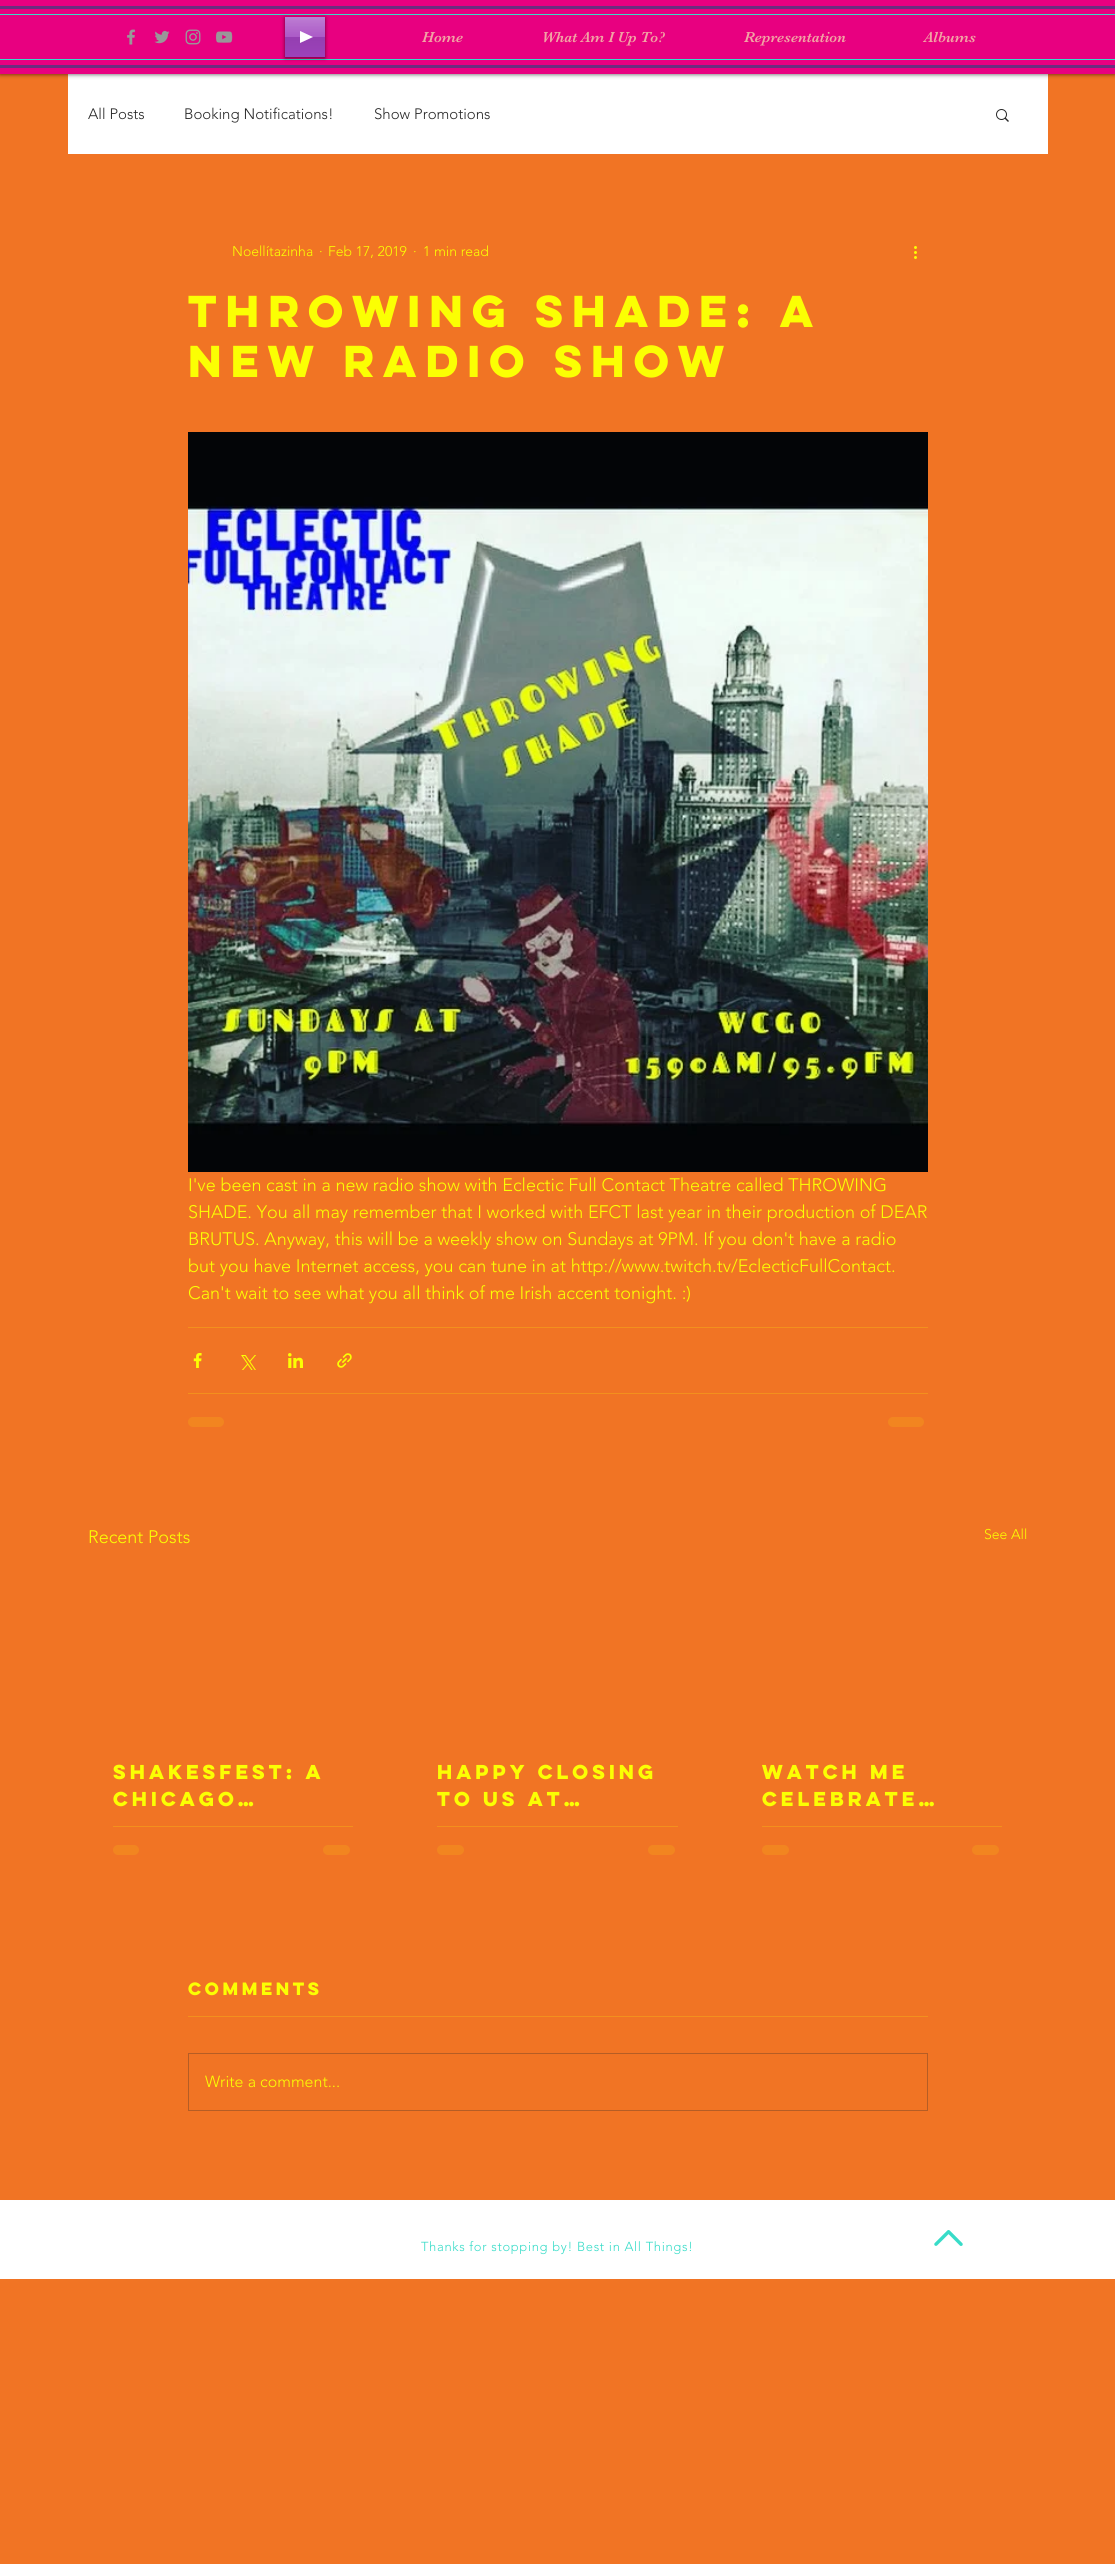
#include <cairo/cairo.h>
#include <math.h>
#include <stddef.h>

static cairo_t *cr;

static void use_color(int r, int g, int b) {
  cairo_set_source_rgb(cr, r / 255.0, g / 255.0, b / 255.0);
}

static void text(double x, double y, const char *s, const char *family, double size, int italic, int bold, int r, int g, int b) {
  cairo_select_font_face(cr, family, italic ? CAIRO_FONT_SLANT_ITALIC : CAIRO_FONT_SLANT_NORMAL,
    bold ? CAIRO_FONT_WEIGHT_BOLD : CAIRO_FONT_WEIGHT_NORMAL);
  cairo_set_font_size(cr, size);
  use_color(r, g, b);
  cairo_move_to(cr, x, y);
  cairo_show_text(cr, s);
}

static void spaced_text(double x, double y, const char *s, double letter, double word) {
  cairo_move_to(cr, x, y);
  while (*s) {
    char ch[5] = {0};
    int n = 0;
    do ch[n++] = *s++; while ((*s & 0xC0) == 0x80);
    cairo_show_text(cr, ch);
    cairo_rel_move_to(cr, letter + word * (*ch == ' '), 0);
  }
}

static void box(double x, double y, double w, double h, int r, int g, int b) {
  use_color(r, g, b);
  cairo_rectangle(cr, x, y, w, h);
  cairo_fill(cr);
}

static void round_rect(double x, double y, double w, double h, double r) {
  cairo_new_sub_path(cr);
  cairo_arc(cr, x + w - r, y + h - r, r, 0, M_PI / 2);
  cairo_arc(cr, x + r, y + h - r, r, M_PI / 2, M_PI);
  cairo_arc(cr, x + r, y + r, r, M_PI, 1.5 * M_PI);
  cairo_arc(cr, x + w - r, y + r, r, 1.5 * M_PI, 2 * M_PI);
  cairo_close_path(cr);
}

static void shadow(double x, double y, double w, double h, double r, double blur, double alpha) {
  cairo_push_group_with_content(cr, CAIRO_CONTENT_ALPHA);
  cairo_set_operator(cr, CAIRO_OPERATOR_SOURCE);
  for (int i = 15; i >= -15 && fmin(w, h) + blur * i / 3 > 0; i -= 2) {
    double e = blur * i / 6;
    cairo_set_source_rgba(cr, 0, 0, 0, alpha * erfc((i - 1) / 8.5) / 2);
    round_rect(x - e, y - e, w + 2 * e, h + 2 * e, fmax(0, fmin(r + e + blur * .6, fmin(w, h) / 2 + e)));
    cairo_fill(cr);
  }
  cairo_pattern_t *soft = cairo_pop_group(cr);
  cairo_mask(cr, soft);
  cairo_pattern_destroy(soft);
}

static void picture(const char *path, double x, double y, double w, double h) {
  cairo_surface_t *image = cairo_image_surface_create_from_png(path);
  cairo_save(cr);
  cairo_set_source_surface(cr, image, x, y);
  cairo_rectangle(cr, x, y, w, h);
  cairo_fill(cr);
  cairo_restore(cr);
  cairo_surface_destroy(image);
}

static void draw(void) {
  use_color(241, 116, 36);
  cairo_paint(cr);
  box(68, 74, 980, 80, 255, 255, 255);
  use_color(0, 0, 0);
  shadow(0, 0, 1115, 74, 0, 2.5, 0.7);
  box(0, 0, 1115, 74, 232, 0, 128);
  box(0, 6, 1115, 3, 107, 45, 127);
  box(0, 65, 1115, 3, 107, 45, 127);
  box(0, 14, 1115, 1, 56, 220, 200);
  box(0, 59, 1115, 1, 56, 220, 200);
  picture("img_01.png", 126, 29, 10, 16);
  picture("img_02.png", 154, 30, 16, 14);
  picture("img_03.png", 185, 29, 16, 16);
  picture("img_04.png", 215, 31, 18, 12);
  use_color(0, 0, 0);
  shadow(285, 18, 40, 40, 0, 2, 0.6);
  box(285, 17, 40, 40, 160, 68, 191);
  picture("img_05.png", 285, 17, 40, 40);
  use_color(255, 255, 255);
  cairo_new_path(cr);
  cairo_move_to(cr, 300, 43);
  cairo_line_to(cr, 300, 31);
  cairo_line_to(cr, 313, 37);
  cairo_close_path(cr);
  cairo_fill(cr);
  picture("img_06.png", 996, 109, 13, 13);
  picture("img_07.png", 914, 246, 3, 13);
  picture("img_08.png", 188, 432, 740, 740);
  box(188, 1327, 740, 1, 243, 144, 29);
  picture("img_09.png", 193, 1353, 9, 15);
  picture("img_10.png", 241, 1355, 15, 15);
  picture("img_11.png", 288, 1353, 15, 15);
  picture("img_12.png", 337, 1353, 15, 15);
  box(188, 1393, 740, 1, 243, 144, 29);
  use_color(242, 133, 32);
  round_rect(188, 1417, 36, 10, 5);
  cairo_fill(cr);
  round_rect(888, 1417, 36, 10, 5);
  cairo_fill(cr);
  box(113, 1826, 240, 1, 243, 144, 29);
  use_color(242, 133, 32);
  round_rect(113, 1845, 26, 10, 5);
  cairo_fill(cr);
  round_rect(323, 1845, 27, 10, 5);
  cairo_fill(cr);
  box(437, 1826, 241, 1, 243, 144, 29);
  use_color(242, 133, 32);
  round_rect(437, 1845, 27, 10, 5);
  cairo_fill(cr);
  round_rect(648, 1845, 27, 10, 5);
  cairo_fill(cr);
  box(762, 1826, 240, 1, 243, 144, 29);
  use_color(242, 133, 32);
  round_rect(762, 1845, 27, 10, 5);
  cairo_fill(cr);
  round_rect(972, 1845, 27, 10, 5);
  cairo_fill(cr);
  box(188, 2016, 740, 1, 243, 144, 29);
  cairo_rectangle(cr, 188.5, 2053.5, 739, 57);
  use_color(181, 93, 37);
  cairo_set_line_width(cr, 1);
  cairo_stroke(cr);
  box(0, 2200, 1115, 79, 255, 255, 255);
  picture("img_13.png", 934, 2230, 29, 16);
  text(422, 42, "Home", "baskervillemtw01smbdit", 15, 0, 0, 241, 164, 164);
  text(542, 42, "What Am I Up To?", "baskervillemtw01smbdit", 15, 0, 0, 241, 164, 164);
  text(744, 42, "Representation", "baskervillemtw01smbdit", 15, 0, 0, 241, 164, 164);
  text(924, 42, "Albums", "baskervillemtw01smbdit", 15, 0, 0, 241, 164, 164);
  text(88, 119, "All Posts", "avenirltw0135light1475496 Light", 15, 0, 0, 40, 40, 40);
  text(184, 119, "Booking Notifications!", "avenirltw0135light1475496 Light", 15, 0, 0, 40, 40, 40);
  text(374, 119, "Show Promotions", "avenirltw0135light1475496 Light", 15, 0, 0, 40, 40, 40);
  text(232, 256, "Noellítazinha", "avenirltw0135light1475496 Light", 14, 0, 0, 251, 255, 3);
  text(319, 256, "·", "avenirltw0135light1475496 Light", 14, 0, 0, 251, 255, 3);
  text(328, 256, "Feb 17, 2019", "avenirltw0135light1475496 Light", 14, 0, 0, 251, 255, 3);
  text(413, 256, "·", "avenirltw0135light1475496 Light", 14, 0, 0, 251, 255, 3);
  text(423, 256, "1 min read", "avenirltw0135light1475496 Light", 14, 0, 0, 251, 255, 3);
  text(188, 327, "Throwing Shade: A", "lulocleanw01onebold", 40, 0, 1, 251, 255, 3);
  text(188, 377, "New Radio Show", "lulocleanw01onebold", 40, 0, 1, 251, 255, 3);
  text(188, 1191, "I've been cast in a new radio show with Eclectic Full Contact Theatre called THROWING", "avenirltw0135light1475496 Light", 18, 0, 0, 251, 255, 3);
  text(188, 1218, "SHADE. You all may remember that I worked with EFCT last year in their production of DEAR", "avenirltw0135light1475496 Light", 18, 0, 0, 251, 255, 3);
  text(188, 1245, "BRUTUS. Anyway, this will be a weekly show on Sundays at 9PM. If you don't have a radio", "avenirltw0135light1475496 Light", 18, 0, 0, 251, 255, 3);
  text(188, 1272, "but you have Internet access, you can tune in at http://www.twitch.tv/EclecticFullContact.", "avenirltw0135light1475496 Light", 18, 0, 0, 251, 255, 3);
  text(188, 1299, "Can't wait to see what you all think of me Irish accent tonight. :)", "avenirltw0135light1475496 Light", 18, 0, 0, 251, 255, 3);
  text(88, 1543, "Recent Posts", "avenirltw0135light1475496 Light", 18, 0, 0, 251, 255, 3);
  text(984, 1539, "See All", "avenirltw0135light1475496 Light", 14, 0, 0, 251, 255, 3);
  text(113, 1779, "ShakesFest: A", "lulocleanw01onebold", 18, 0, 1, 251, 255, 3);
  text(113, 1806, "Chicago…", "lulocleanw01onebold", 18, 0, 1, 251, 255, 3);
  text(437, 1779, "Happy Closing", "lulocleanw01onebold", 18, 0, 1, 251, 255, 3);
  text(437, 1806, "to Us At…", "lulocleanw01onebold", 18, 0, 1, 251, 255, 3);
  text(762, 1779, "Watch Me", "lulocleanw01onebold", 18, 0, 1, 251, 255, 3);
  text(762, 1806, "Celebrate…", "lulocleanw01onebold", 18, 0, 1, 251, 255, 3);
  text(188, 1995, "Comments", "lulocleanw01onebold", 16, 0, 1, 251, 255, 3);
  text(205, 2087, "Write a comment...", "avenirltw0135light1475496 Light", 16, 0, 0, 251, 255, 3);
  cairo_set_font_size(cr, 13);
  use_color(56, 220, 200);
  spaced_text(421, 2251, "Thanks for stopping by! Best in All Things!", 0.65, 0);
}

int main(void) {
  cairo_surface_t *surface = cairo_image_surface_create(CAIRO_FORMAT_RGB24, 1115, 2564);
  cr = cairo_create(surface);
  cairo_font_options_t *options = cairo_font_options_create();
  cairo_font_options_set_hint_metrics(options, CAIRO_HINT_METRICS_OFF);
  cairo_font_options_set_hint_style(options, CAIRO_HINT_STYLE_NONE);
  cairo_set_font_options(cr, options);
  cairo_set_miter_limit(cr, 4);
  draw();
  cairo_surface_write_to_png(surface, "out.png");
  cairo_font_options_destroy(options);
  cairo_destroy(cr);
  cairo_surface_destroy(surface);
  return 0;
}
